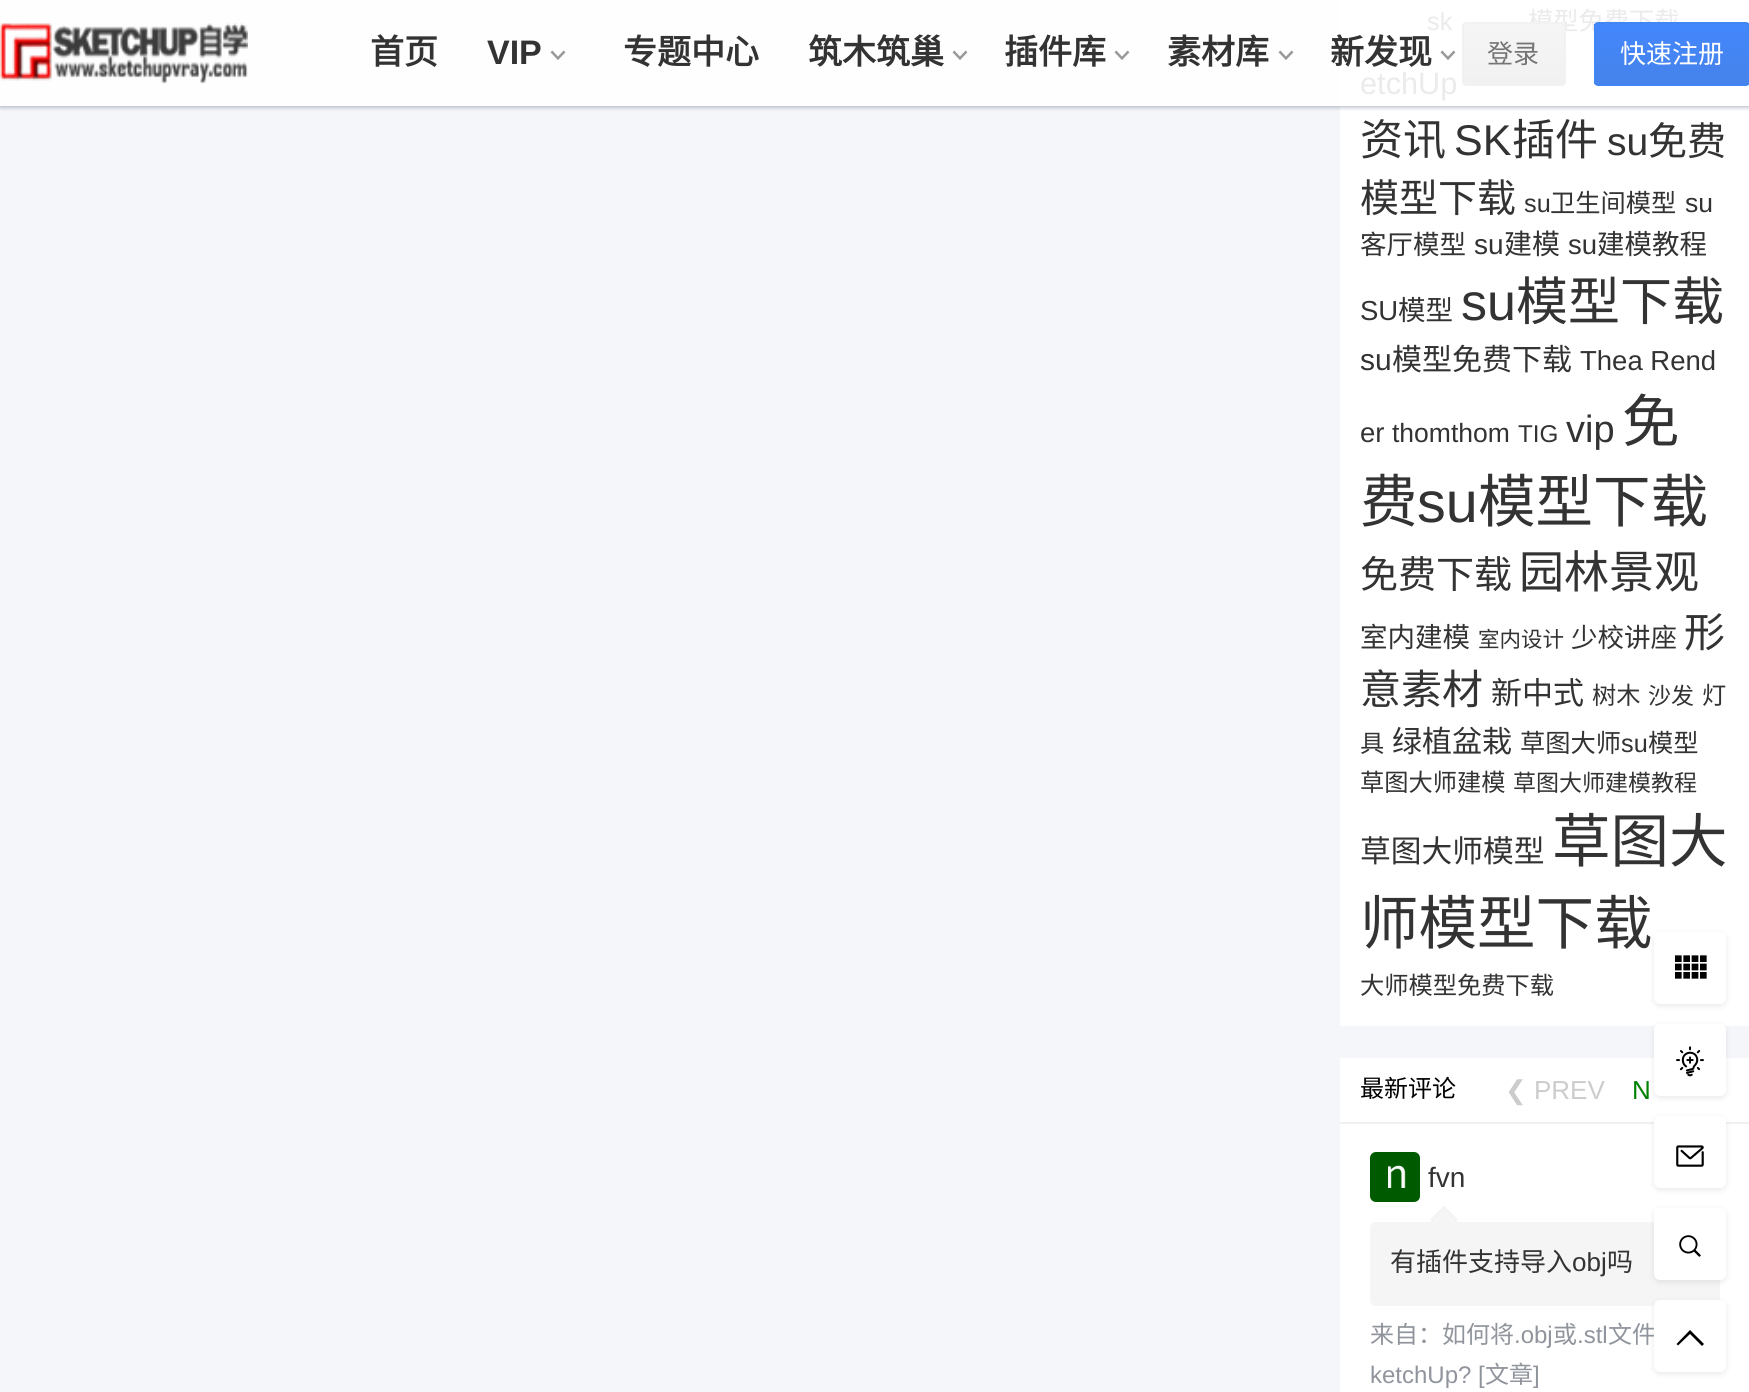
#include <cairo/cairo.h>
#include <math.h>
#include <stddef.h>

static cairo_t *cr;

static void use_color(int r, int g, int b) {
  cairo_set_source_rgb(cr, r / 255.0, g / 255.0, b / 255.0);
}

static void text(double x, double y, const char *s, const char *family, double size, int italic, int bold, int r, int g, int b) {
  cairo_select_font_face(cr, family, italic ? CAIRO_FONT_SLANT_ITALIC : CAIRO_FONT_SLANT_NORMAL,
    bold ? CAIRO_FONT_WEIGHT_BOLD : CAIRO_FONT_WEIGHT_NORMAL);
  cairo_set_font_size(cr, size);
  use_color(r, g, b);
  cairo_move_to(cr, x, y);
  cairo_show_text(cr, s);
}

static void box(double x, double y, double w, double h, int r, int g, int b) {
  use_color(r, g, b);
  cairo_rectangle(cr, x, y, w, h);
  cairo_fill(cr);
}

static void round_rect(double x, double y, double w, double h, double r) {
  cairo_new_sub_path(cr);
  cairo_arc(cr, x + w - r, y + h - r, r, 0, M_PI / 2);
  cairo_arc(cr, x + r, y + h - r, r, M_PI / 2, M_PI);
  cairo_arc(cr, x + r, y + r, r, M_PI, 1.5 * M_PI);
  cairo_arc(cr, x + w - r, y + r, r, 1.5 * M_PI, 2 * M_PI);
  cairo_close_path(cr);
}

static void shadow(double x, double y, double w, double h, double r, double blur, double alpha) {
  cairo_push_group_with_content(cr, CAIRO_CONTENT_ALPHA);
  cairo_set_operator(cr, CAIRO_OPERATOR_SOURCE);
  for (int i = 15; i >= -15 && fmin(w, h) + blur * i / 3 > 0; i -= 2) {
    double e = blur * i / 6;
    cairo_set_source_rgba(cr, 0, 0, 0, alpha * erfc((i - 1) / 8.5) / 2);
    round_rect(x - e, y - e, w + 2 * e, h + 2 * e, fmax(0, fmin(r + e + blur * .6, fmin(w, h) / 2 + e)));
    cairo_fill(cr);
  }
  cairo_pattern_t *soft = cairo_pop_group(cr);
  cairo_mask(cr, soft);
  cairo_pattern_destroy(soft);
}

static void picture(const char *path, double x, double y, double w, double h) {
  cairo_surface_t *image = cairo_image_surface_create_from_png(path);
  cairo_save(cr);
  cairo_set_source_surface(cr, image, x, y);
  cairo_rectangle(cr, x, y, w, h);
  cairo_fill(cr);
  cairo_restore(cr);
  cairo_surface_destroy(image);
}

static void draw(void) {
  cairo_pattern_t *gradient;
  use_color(245, 246, 249);
  cairo_paint(cr);
  box(0, 0, 1340, 106, 254, 254, 254);
  box(1340, 0, 409, 1026, 255, 255, 255);
  box(1340, 1058, 409, 334, 255, 255, 255);
  box(1340, 1122, 409, 2, 240, 240, 240);
  use_color(0, 91, 0);
  round_rect(1370, 1152, 50, 50, 6);
  cairo_fill(cr);
  picture("img_01.png", 1388, 1165, 18, 23);
  use_color(245, 245, 245);
  round_rect(1370, 1222, 350, 84, 6);
  cairo_fill(cr);
  use_color(241, 241, 241);
  cairo_new_path(cr);
  cairo_move_to(cr, 1458, 1220);
  cairo_line_to(cr, 1430, 1220);
  cairo_line_to(cr, 1444, 1206);
  cairo_close_path(cr);
  cairo_fill(cr);
  use_color(245, 245, 245);
  cairo_new_path(cr);
  cairo_move_to(cr, 1458, 1222);
  cairo_line_to(cr, 1430, 1222);
  cairo_line_to(cr, 1444, 1208);
  cairo_close_path(cr);
  cairo_fill(cr);
  use_color(26, 26, 26);
  shadow(1654, 934, 72, 72, 6, 3, 0.1);
  use_color(255, 255, 255);
  round_rect(1654, 932, 72, 72, 6);
  cairo_fill(cr);
  picture("img_02.png", 1675, 955, 32, 24);
  use_color(26, 26, 26);
  shadow(1654, 1026, 72, 72, 6, 3, 0.1);
  use_color(255, 255, 255);
  round_rect(1654, 1024, 72, 72, 6);
  cairo_fill(cr);
  picture("img_03.png", 1676, 1046, 28, 31);
  use_color(26, 26, 26);
  shadow(1654, 1118, 72, 72, 6, 3, 0.1);
  use_color(255, 255, 255);
  round_rect(1654, 1116, 72, 72, 6);
  cairo_fill(cr);
  picture("img_04.png", 1676, 1145, 28, 22);
  use_color(26, 26, 26);
  shadow(1654, 1210, 72, 72, 6, 3, 0.1);
  use_color(255, 255, 255);
  round_rect(1654, 1208, 72, 72, 6);
  cairo_fill(cr);
  picture("img_05.png", 1679, 1235, 22, 22);
  use_color(26, 26, 26);
  shadow(1654, 1302, 72, 72, 6, 3, 0.1);
  cairo_save(cr);
  cairo_rectangle(cr, 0, 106, 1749, 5);
  cairo_clip(cr);
  use_color(43, 59, 93);
  shadow(0, 2, 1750, 106, 0, 2, 0.29);
  cairo_restore(cr);
  picture("img_06.png", 0, 23, 248, 61);
  picture("img_07.png", 550, 50, 16, 10);
  picture("img_07.png", 952, 50, 16, 10);
  picture("img_07.png", 1114, 50, 16, 10);
  picture("img_07.png", 1278, 50, 16, 10);
  picture("img_08.png", 1440, 50, 16, 10);
  text(1427, 30, "sk", "Liberation Sans", 25.25, 0, 0, 235, 235, 235);
  text(1528, 30, "模型免费下载", "Noto Sans CJK SC", 25.25, 0, 0, 235, 235, 235);
  text(1360, 94, "etchUp", "Liberation Sans", 30.75, 0, 0, 235, 235, 235);
  text(1360, 155, "资讯", "Noto Sans CJK SC", 43, 0, 0, 51, 51, 51);
  text(1454, 155, "SK", "Liberation Sans", 43, 0, 0, 51, 51, 51);
  text(1512, 155, "插件", "Noto Sans CJK SC", 43, 0, 0, 51, 51, 51);
  text(1607, 155, "su", "Liberation Sans", 39, 0, 0, 51, 51, 51);
  text(1648, 155, "免费", "Noto Sans CJK SC", 39, 0, 0, 51, 51, 51);
  text(1360, 212, "模型下载", "Noto Sans CJK SC", 39, 0, 0, 51, 51, 51);
  text(1524, 212, "su", "Liberation Sans", 25.25, 0, 0, 51, 51, 51);
  text(1550, 212, "卫生间模型", "Noto Sans CJK SC", 25.25, 0, 0, 51, 51, 51);
  text(1685, 212, "su", "Liberation Sans", 26.5, 0, 0, 51, 51, 51);
  text(1360, 254, "客厅模型", "Noto Sans CJK SC", 26.5, 0, 0, 51, 51, 51);
  text(1474, 254, "su", "Liberation Sans", 28, 0, 0, 51, 51, 51);
  text(1504, 254, "建模", "Noto Sans CJK SC", 28, 0, 0, 51, 51, 51);
  text(1568, 254, "su", "Liberation Sans", 27.5, 0, 0, 51, 51, 51);
  text(1597, 254, "建模教程", "Noto Sans CJK SC", 27.5, 0, 0, 51, 51, 51);
  text(1360, 320, "SU", "Liberation Sans", 27.5, 0, 0, 51, 51, 51);
  text(1398, 320, "模型", "Noto Sans CJK SC", 27.5, 0, 0, 51, 51, 51);
  text(1461, 320, "su", "Liberation Sans", 52, 0, 0, 51, 51, 51);
  text(1516, 320, "模型下载", "Noto Sans CJK SC", 52, 0, 0, 51, 51, 51);
  text(1360, 370, "su", "Liberation Sans", 30, 0, 0, 51, 51, 51);
  text(1392, 370, "模型免费下载", "Noto Sans CJK SC", 30, 0, 0, 51, 51, 51);
  text(1580, 370, "Thea Rend", "Liberation Sans", 27.5, 0, 0, 51, 51, 51);
  text(1360, 442, "er", "Liberation Sans", 27.5, 0, 0, 51, 51, 51);
  text(1392, 442, "thomthom", "Liberation Sans", 26.5, 0, 0, 51, 51, 51);
  text(1518, 442, "TIG", "Liberation Sans", 24.25, 0, 0, 51, 51, 51);
  text(1566, 442, "vip", "Liberation Sans", 38, 0, 0, 51, 51, 51);
  text(1622, 442, "免", "Noto Sans CJK SC", 57.5, 0, 0, 51, 51, 51);
  text(1360, 522, "费", "Noto Sans CJK SC", 57.5, 0, 0, 51, 51, 51);
  text(1417, 522, "su", "Liberation Sans", 57.5, 0, 0, 51, 51, 51);
  text(1478, 522, "模型下载", "Noto Sans CJK SC", 57.5, 0, 0, 51, 51, 51);
  text(1360, 588, "免费下载", "Noto Sans CJK SC", 38, 0, 0, 51, 51, 51);
  text(1519, 588, "园林景观", "Noto Sans CJK SC", 45, 0, 0, 51, 51, 51);
  text(1360, 647, "室内建模", "Noto Sans CJK SC", 27.5, 0, 0, 51, 51, 51);
  text(1478, 647, "室内设计", "Noto Sans CJK SC", 21.5, 0, 0, 51, 51, 51);
  text(1571, 647, "少校讲座", "Noto Sans CJK SC", 26.5, 0, 0, 51, 51, 51);
  text(1684, 647, "形", "Noto Sans CJK SC", 41, 0, 0, 51, 51, 51);
  text(1360, 704, "意素材", "Noto Sans CJK SC", 41, 0, 0, 51, 51, 51);
  text(1491, 704, "新中式", "Noto Sans CJK SC", 31, 0, 0, 51, 51, 51);
  text(1592, 704, "树木", "Noto Sans CJK SC", 24.25, 0, 0, 51, 51, 51);
  text(1648, 704, "沙发", "Noto Sans CJK SC", 23, 0, 0, 51, 51, 51);
  text(1702, 704, "灯", "Noto Sans CJK SC", 24.25, 0, 0, 51, 51, 51);
  text(1360, 752, "具", "Noto Sans CJK SC", 24.25, 0, 0, 51, 51, 51);
  text(1392, 752, "绿植盆栽", "Noto Sans CJK SC", 30, 0, 0, 51, 51, 51);
  text(1520, 752, "草图大师", "Noto Sans CJK SC", 25.25, 0, 0, 51, 51, 51);
  text(1621, 752, "su", "Liberation Sans", 25.25, 0, 0, 51, 51, 51);
  text(1648, 752, "模型", "Noto Sans CJK SC", 25.25, 0, 0, 51, 51, 51);
  text(1360, 791, "草图大师建模", "Noto Sans CJK SC", 24.25, 0, 0, 51, 51, 51);
  text(1513, 791, "草图大师建模教程", "Noto Sans CJK SC", 23, 0, 0, 51, 51, 51);
  text(1360, 862, "草图大师模型", "Noto Sans CJK SC", 30.75, 0, 0, 51, 51, 51);
  text(1552, 862, "草图大", "Noto Sans CJK SC", 58.5, 0, 0, 51, 51, 51);
  text(1360, 944, "师模型下载", "Noto Sans CJK SC", 58.5, 0, 0, 51, 51, 51);
  text(1360, 994, "大师模型免费下载", "Noto Sans CJK SC", 24.25, 0, 0, 51, 51, 51);
  text(1360, 1097, "最新评论", "Noto Sans CJK SC", 24, 0, 0, 0, 0, 0);
  text(1505, 1099, "❮", "DejaVu Sans", 26, 0, 0, 204, 204, 204);
  text(1534, 1099, "PREV", "Liberation Sans", 26, 0, 0, 204, 204, 204);
  text(1632, 1099, "N", "Liberation Sans", 26, 0, 0, 0, 128, 0);
  text(1428, 1187, "fvn", "Liberation Sans", 28, 0, 0, 51, 51, 51);
  text(1390, 1271, "有插件支持导入", "Noto Sans CJK SC", 26, 0, 0, 51, 51, 51);
  text(1572, 1271, "obj", "Liberation Sans", 26, 0, 0, 51, 51, 51);
  text(1607, 1271, "吗", "Noto Sans CJK SC", 26, 0, 0, 51, 51, 51);
  text(1370, 1343, "来自：如何将", "Noto Sans CJK SC", 24, 0, 0, 144, 148, 156);
  text(1514, 1343, ".obj", "Liberation Sans", 24, 0, 0, 144, 148, 156);
  text(1553, 1343, "或", "Noto Sans CJK SC", 24, 0, 0, 144, 148, 156);
  text(1577, 1343, ".stl", "Liberation Sans", 24, 0, 0, 144, 148, 156);
  text(1608, 1343, "文件", "Noto Sans CJK SC", 24, 0, 0, 144, 148, 156);
  text(1370, 1383, "ketchUp? [", "Liberation Sans", 24, 0, 0, 144, 148, 156);
  text(1485, 1383, "文章", "Noto Sans CJK SC", 24, 0, 0, 144, 148, 156);
  text(1533, 1383, "]", "Liberation Sans", 24, 0, 0, 144, 148, 156);
  use_color(255, 255, 255);
  round_rect(1654, 1300, 72, 72, 6);
  cairo_fill(cr);
  use_color(0, 0, 0);
  cairo_new_path(cr);
  cairo_move_to(cr, 1704, 1344);
  cairo_line_to(cr, 1690, 1330);
  cairo_line_to(cr, 1676.5, 1344);
  cairo_line_to(cr, 1678, 1345.5);
  cairo_line_to(cr, 1690, 1334);
  cairo_line_to(cr, 1702, 1346);
  cairo_close_path(cr);
  cairo_fill(cr);
  text(370, 64, "首页", "Noto Sans CJK SC", 34, 0, 1, 51, 51, 51);
  text(487, 64, "VIP", "Liberation Sans", 34, 0, 1, 51, 51, 51);
  text(623, 64, "专题中心", "Noto Sans CJK SC", 34, 0, 1, 51, 51, 51);
  text(808, 64, "筑木筑巢", "Noto Sans CJK SC", 34, 0, 1, 51, 51, 51);
  text(1004, 64, "插件库", "Noto Sans CJK SC", 34, 0, 1, 51, 51, 51);
  text(1167, 64, "素材库", "Noto Sans CJK SC", 34, 0, 1, 51, 51, 51);
  text(1330, 64, "新发现", "Noto Sans CJK SC", 34, 0, 1, 51, 51, 51);
  cairo_save(cr);
  round_rect(1462, 22, 104, 64, 4);
  cairo_clip(cr);
  gradient = cairo_pattern_create_linear(1514, 24, 1514, 84);
  cairo_pattern_add_color_stop_rgba(gradient, 0, 0.961, 0.961, 0.961, 1);
  cairo_pattern_add_color_stop_rgba(gradient, 1, 0.945, 0.945, 0.945, 1);
  cairo_set_source(cr, gradient);
  cairo_pattern_destroy(gradient);
  cairo_rectangle(cr, 1462, 24, 104, 60);
  cairo_fill(cr);
  cairo_restore(cr);
  round_rect(1463, 23, 102, 62, 3);
  use_color(242, 242, 242);
  cairo_stroke(cr);
  text(1487, 63, "登录", "Noto Sans CJK SC", 26, 0, 0, 117, 117, 117);
  gradient = cairo_pattern_create_linear(1672, 24, 1672, 84);
  cairo_pattern_add_color_stop_rgba(gradient, 0, 0.263, 0.529, 0.992, 1);
  cairo_pattern_add_color_stop_rgba(gradient, 1, 0.275, 0.514, 0.918, 1);
  cairo_set_source(cr, gradient);
  cairo_pattern_destroy(gradient);
  cairo_rectangle(cr, 1594, 24, 154, 60);
  cairo_fill(cr);
  round_rect(1595, 23, 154, 62, 3);
  use_color(66, 133, 244);
  cairo_stroke(cr);
  text(1620, 63, "快速注册", "Noto Sans CJK SC", 26, 0, 0, 255, 255, 255);
}

int main(void) {
  cairo_surface_t *surface = cairo_image_surface_create(CAIRO_FORMAT_RGB24, 1749, 1392);
  cr = cairo_create(surface);
  cairo_font_options_t *options = cairo_font_options_create();
  cairo_font_options_set_hint_metrics(options, CAIRO_HINT_METRICS_OFF);
  cairo_font_options_set_hint_style(options, CAIRO_HINT_STYLE_NONE);
  cairo_set_font_options(cr, options);
  cairo_set_miter_limit(cr, 4);
  draw();
  cairo_surface_write_to_png(surface, "out.png");
  cairo_font_options_destroy(options);
  cairo_destroy(cr);
  cairo_surface_destroy(surface);
  return 0;
}
